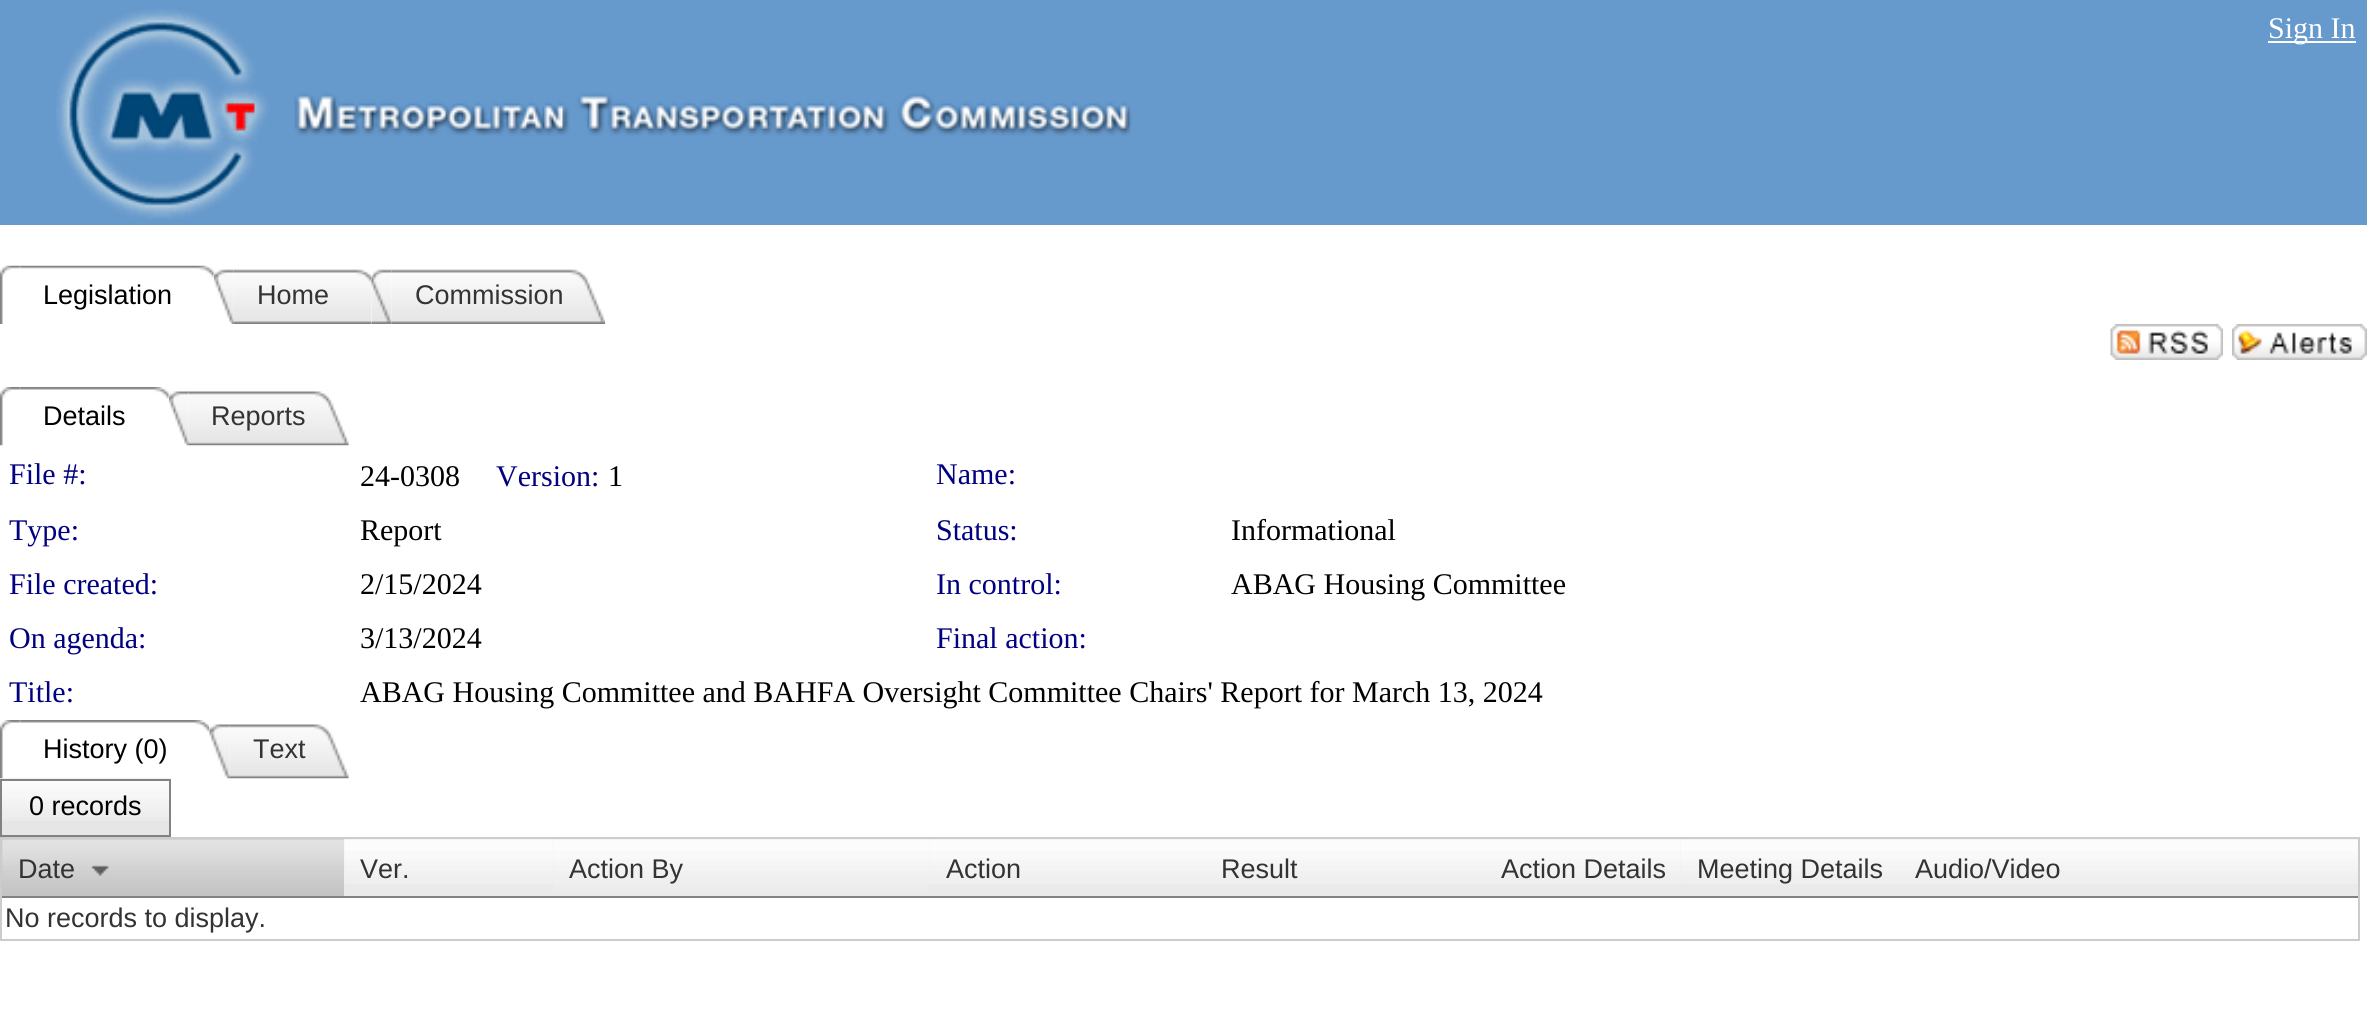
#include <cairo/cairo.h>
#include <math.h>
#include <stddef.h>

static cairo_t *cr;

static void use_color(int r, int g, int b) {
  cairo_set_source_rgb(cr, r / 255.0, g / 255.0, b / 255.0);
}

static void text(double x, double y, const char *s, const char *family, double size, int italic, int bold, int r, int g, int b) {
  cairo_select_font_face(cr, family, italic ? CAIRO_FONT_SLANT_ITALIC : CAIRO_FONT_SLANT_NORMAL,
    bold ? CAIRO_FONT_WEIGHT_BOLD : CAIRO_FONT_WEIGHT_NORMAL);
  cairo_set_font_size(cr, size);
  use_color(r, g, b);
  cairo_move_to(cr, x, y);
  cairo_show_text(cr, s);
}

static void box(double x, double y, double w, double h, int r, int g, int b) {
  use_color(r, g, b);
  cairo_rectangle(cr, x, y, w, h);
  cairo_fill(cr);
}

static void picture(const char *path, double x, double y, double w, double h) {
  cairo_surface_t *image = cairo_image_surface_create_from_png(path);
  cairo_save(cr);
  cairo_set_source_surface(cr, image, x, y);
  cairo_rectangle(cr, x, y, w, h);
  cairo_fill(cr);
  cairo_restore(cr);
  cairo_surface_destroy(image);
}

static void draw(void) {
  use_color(255, 255, 255);
  cairo_paint(cr);
  box(0, 0, 2367, 225, 102, 153, 204);
  picture("img_01.png", 56, 9, 1076, 210);
  box(2268, 41, 88, 2, 255, 255, 255);
  picture("img_02.png", 0, 265, 21, 59);
  picture("img_03.png", 20, 265, 194, 13);
  picture("img_04.png", 213, 269, 22, 55);
  picture("img_05.png", 234, 269, 138, 55);
  picture("img_06.png", 371, 269, 22, 55);
  picture("img_07.png", 391, 269, 215, 55);
  picture("img_08.png", 2110, 324, 113, 36);
  picture("img_09.png", 2232, 324, 135, 36);
  picture("img_10.png", 0, 387, 21, 59);
  picture("img_11.png", 20, 387, 149, 12);
  picture("img_12.png", 168, 391, 22, 55);
  picture("img_13.png", 189, 391, 160, 55);
  picture("img_14.png", 0, 720, 21, 59);
  picture("img_15.png", 20, 720, 190, 12);
  picture("img_16.png", 209, 724, 22, 55);
  picture("img_17.png", 229, 724, 120, 55);
  box(2, 821, 167, 14, 230, 230, 230);
  picture("img_18.png", 0, 778, 171, 43);
  cairo_rectangle(cr, 1, 780, 169, 56);
  use_color(130, 130, 130);
  cairo_stroke(cr);
  cairo_rectangle(cr, 1, 838, 2358, 102);
  use_color(204, 204, 204);
  cairo_stroke(cr);
  box(2, 839, 342, 57, 196, 196, 196);
  picture("img_19.png", 2, 839, 342, 57);
  box(2, 896, 2356, 2, 130, 130, 130);
  picture("img_20.png", 91, 865, 18, 11);
  box(344, 839, 2014, 57, 234, 234, 234);
  picture("img_21.png", 344, 839, 210, 45);
  picture("img_22.png", 553, 839, 376, 56);
  picture("img_23.png", 929, 839, 277, 45);
  picture("img_24.png", 1206, 839, 279, 45);
  picture("img_25.png", 1485, 839, 196, 45);
  picture("img_26.png", 1681, 839, 218, 45);
  picture("img_27.png", 1899, 839, 459, 45);
  text(2268, 38, "Sign In", "Liberation Serif", 30, 0, 0, 255, 255, 255);
  text(43, 304, "Legislation", "Liberation Sans", 27, 0, 0, 0, 0, 0);
  text(257, 304, "Home", "Liberation Sans", 27, 0, 0, 51, 51, 51);
  text(415, 304, "Commission", "Liberation Sans", 27, 0, 0, 51, 51, 51);
  text(43, 425, "Details", "Liberation Sans", 27, 0, 0, 0, 0, 0);
  text(211, 425, "Reports", "Liberation Sans", 27, 0, 0, 51, 51, 51);
  text(9, 484, "File #:", "Liberation Serif", 30, 0, 0, 0, 0, 128);
  text(360, 486, "24-0308", "Liberation Serif", 30, 0, 0, 0, 0, 0);
  text(496, 486, "Version:", "Liberation Serif", 30, 0, 0, 0, 0, 128);
  text(608, 486, "1", "Liberation Serif", 30, 0, 0, 0, 0, 0);
  text(936, 484, "Name:", "Liberation Serif", 30, 0, 0, 0, 0, 128);
  text(9, 540, "Type:", "Liberation Serif", 30, 0, 0, 0, 0, 128);
  text(360, 540, "Report", "Liberation Serif", 30, 0, 0, 0, 0, 0);
  text(936, 540, "Status:", "Liberation Serif", 30, 0, 0, 0, 0, 128);
  text(1231, 540, "Informational", "Liberation Serif", 30, 0, 0, 0, 0, 0);
  text(9, 594, "File created:", "Liberation Serif", 30, 0, 0, 0, 0, 128);
  text(360, 594, "2/15/2024", "Liberation Serif", 30, 0, 0, 0, 0, 0);
  text(936, 594, "In control:", "Liberation Serif", 30, 0, 0, 0, 0, 128);
  text(1231, 594, "ABAG Housing Committee", "Liberation Serif", 30, 0, 0, 0, 0, 0);
  text(9, 648, "On agenda:", "Liberation Serif", 30, 0, 0, 0, 0, 128);
  text(360, 648, "3/13/2024", "Liberation Serif", 30, 0, 0, 0, 0, 0);
  text(936, 648, "Final action:", "Liberation Serif", 30, 0, 0, 0, 0, 128);
  text(9, 702, "Title:", "Liberation Serif", 30, 0, 0, 0, 0, 128);
  text(360, 702, "ABAG Housing Committee and BAHFA Oversight Committee Chairs' Report for March 13, 2024", "Liberation Serif", 30, 0, 0, 0, 0, 0);
  text(43, 758, "History (0)", "Liberation Sans", 27, 0, 0, 0, 0, 0);
  text(253, 758, "Text", "Liberation Sans", 27, 0, 0, 51, 51, 51);
  text(29, 815, "0 records", "Liberation Sans", 27, 0, 0, 0, 0, 0);
  text(18, 878, "Date", "Liberation Sans", 27, 0, 0, 51, 51, 51);
  text(360, 878, "Ver.", "Liberation Sans", 27, 0, 0, 51, 51, 51);
  text(569, 878, "Action By", "Liberation Sans", 27, 0, 0, 51, 51, 51);
  text(946, 878, "Action", "Liberation Sans", 27, 0, 0, 51, 51, 51);
  text(1221, 878, "Result", "Liberation Sans", 27, 0, 0, 51, 51, 51);
  text(1501, 878, "Action Details", "Liberation Sans", 27, 0, 0, 51, 51, 51);
  text(1697, 878, "Meeting Details", "Liberation Sans", 27, 0, 0, 51, 51, 51);
  text(1915, 878, "Audio/Video", "Liberation Sans", 27, 0, 0, 51, 51, 51);
  text(5, 927, "No records to display.", "Liberation Sans", 27, 0, 0, 51, 51, 51);
}

int main(void) {
  cairo_surface_t *surface = cairo_image_surface_create(CAIRO_FORMAT_RGB24, 2367, 1015);
  cr = cairo_create(surface);
  cairo_font_options_t *options = cairo_font_options_create();
  cairo_font_options_set_hint_metrics(options, CAIRO_HINT_METRICS_OFF);
  cairo_font_options_set_hint_style(options, CAIRO_HINT_STYLE_NONE);
  cairo_set_font_options(cr, options);
  cairo_set_miter_limit(cr, 4);
  draw();
  cairo_surface_write_to_png(surface, "out.png");
  cairo_font_options_destroy(options);
  cairo_destroy(cr);
  cairo_surface_destroy(surface);
  return 0;
}
